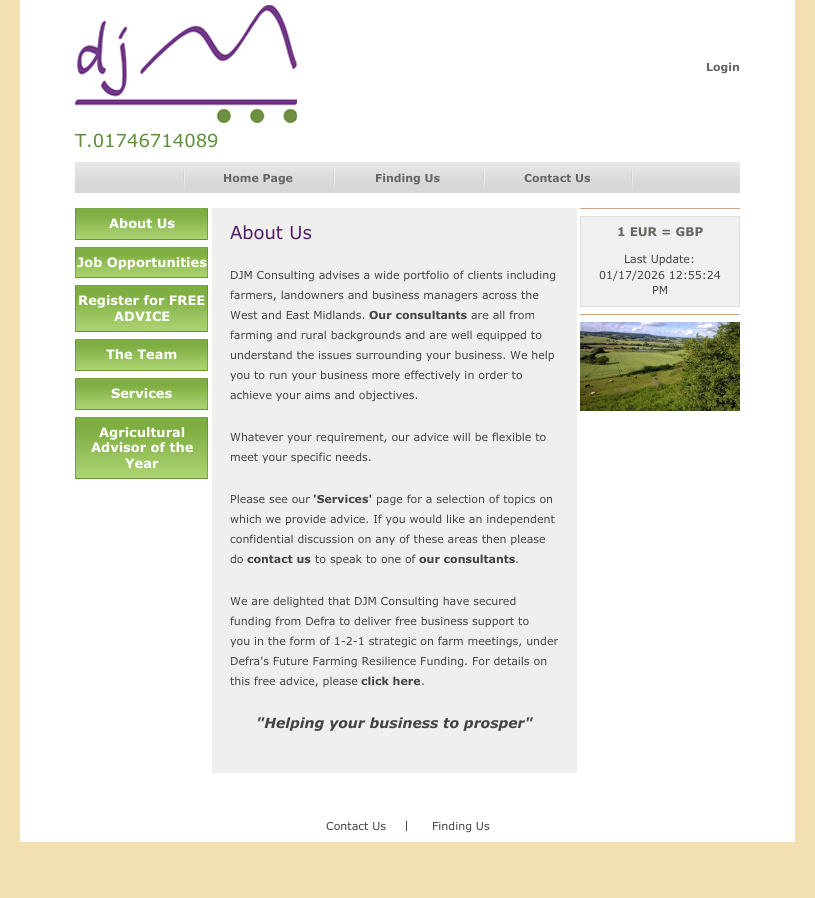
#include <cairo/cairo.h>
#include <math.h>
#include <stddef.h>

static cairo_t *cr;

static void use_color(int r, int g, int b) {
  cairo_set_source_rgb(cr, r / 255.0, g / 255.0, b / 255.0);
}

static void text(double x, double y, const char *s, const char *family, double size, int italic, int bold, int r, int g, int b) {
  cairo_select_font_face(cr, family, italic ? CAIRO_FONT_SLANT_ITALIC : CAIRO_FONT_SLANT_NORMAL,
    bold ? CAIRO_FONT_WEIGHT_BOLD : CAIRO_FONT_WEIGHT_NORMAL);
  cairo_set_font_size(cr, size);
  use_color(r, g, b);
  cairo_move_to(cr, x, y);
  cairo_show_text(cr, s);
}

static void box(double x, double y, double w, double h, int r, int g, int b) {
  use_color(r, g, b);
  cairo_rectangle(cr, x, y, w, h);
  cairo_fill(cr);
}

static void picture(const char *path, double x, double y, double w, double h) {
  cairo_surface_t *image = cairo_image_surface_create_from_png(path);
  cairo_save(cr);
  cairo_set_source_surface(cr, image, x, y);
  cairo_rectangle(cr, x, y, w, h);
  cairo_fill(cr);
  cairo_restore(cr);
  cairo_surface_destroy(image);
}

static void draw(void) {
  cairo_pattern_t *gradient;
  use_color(242, 224, 177);
  cairo_paint(cr);
  box(20, 0, 775, 842, 255, 255, 255);
  picture("img_01.png", 75, 5, 223, 121);
  gradient = cairo_pattern_create_linear(408, 162, 408, 193);
  cairo_pattern_add_color_stop_rgba(gradient, 0, 0.91, 0.91, 0.91, 1);
  cairo_pattern_add_color_stop_rgba(gradient, 0.72, 0.843, 0.843, 0.843, 1);
  cairo_pattern_add_color_stop_rgba(gradient, 1, 0.843, 0.843, 0.843, 1);
  cairo_set_source(cr, gradient);
  cairo_pattern_destroy(gradient);
  cairo_rectangle(cr, 75, 162, 665, 31);
  cairo_fill(cr);
  picture("img_02.png", 183, 167, 2, 22);
  picture("img_02.png", 333, 167, 2, 22);
  picture("img_02.png", 483, 167, 2, 22);
  picture("img_02.png", 631, 167, 2, 22);
  gradient = cairo_pattern_create_linear(142, 179, 142, 209);
  cairo_pattern_add_color_stop_rgba(gradient, 0, 0.494, 0.678, 0.255, 1);
  cairo_pattern_add_color_stop_rgba(gradient, 0.17, 0.494, 0.678, 0.255, 1);
  cairo_pattern_add_color_stop_rgba(gradient, 1, 0.678, 0.831, 0.451, 1);
  cairo_set_source(cr, gradient);
  cairo_pattern_destroy(gradient);
  cairo_rectangle(cr, 75, 208, 133, 1);
  cairo_fill(cr);
  gradient = cairo_pattern_create_linear(142, 209, 142, 239);
  cairo_pattern_add_color_stop_rgba(gradient, 0, 0.494, 0.678, 0.255, 1);
  cairo_pattern_add_color_stop_rgba(gradient, 0.17, 0.494, 0.678, 0.255, 1);
  cairo_pattern_add_color_stop_rgba(gradient, 1, 0.678, 0.831, 0.451, 1);
  cairo_set_source(cr, gradient);
  cairo_pattern_destroy(gradient);
  cairo_rectangle(cr, 75, 209, 133, 30);
  cairo_fill(cr);
  gradient = cairo_pattern_create_linear(142, 239, 142, 269);
  cairo_pattern_add_color_stop_rgba(gradient, 0, 0.494, 0.678, 0.255, 1);
  cairo_pattern_add_color_stop_rgba(gradient, 0.17, 0.494, 0.678, 0.255, 1);
  cairo_pattern_add_color_stop_rgba(gradient, 1, 0.678, 0.831, 0.451, 1);
  cairo_set_source(cr, gradient);
  cairo_pattern_destroy(gradient);
  cairo_rectangle(cr, 75, 239, 133, 1);
  cairo_fill(cr);
  cairo_rectangle(cr, 75.5, 208.5, 132, 31);
  cairo_set_source_rgba(cr, 0.345, 0.529, 0.145, 0.6);
  cairo_set_line_width(cr, 1);
  cairo_stroke(cr);
  gradient = cairo_pattern_create_linear(142, 219, 142, 248);
  cairo_pattern_add_color_stop_rgba(gradient, 0, 0.494, 0.678, 0.255, 1);
  cairo_pattern_add_color_stop_rgba(gradient, 0.17, 0.494, 0.678, 0.255, 1);
  cairo_pattern_add_color_stop_rgba(gradient, 1, 0.678, 0.831, 0.451, 1);
  cairo_set_source(cr, gradient);
  cairo_pattern_destroy(gradient);
  cairo_rectangle(cr, 75, 247, 133, 1);
  cairo_fill(cr);
  gradient = cairo_pattern_create_linear(142, 248, 142, 277);
  cairo_pattern_add_color_stop_rgba(gradient, 0, 0.494, 0.678, 0.255, 1);
  cairo_pattern_add_color_stop_rgba(gradient, 0.17, 0.494, 0.678, 0.255, 1);
  cairo_pattern_add_color_stop_rgba(gradient, 1, 0.678, 0.831, 0.451, 1);
  cairo_set_source(cr, gradient);
  cairo_pattern_destroy(gradient);
  cairo_rectangle(cr, 75, 248, 133, 29);
  cairo_fill(cr);
  gradient = cairo_pattern_create_linear(142, 277, 142, 306);
  cairo_pattern_add_color_stop_rgba(gradient, 0, 0.494, 0.678, 0.255, 1);
  cairo_pattern_add_color_stop_rgba(gradient, 0.17, 0.494, 0.678, 0.255, 1);
  cairo_pattern_add_color_stop_rgba(gradient, 1, 0.678, 0.831, 0.451, 1);
  cairo_set_source(cr, gradient);
  cairo_pattern_destroy(gradient);
  cairo_rectangle(cr, 75, 277, 133, 1);
  cairo_fill(cr);
  cairo_rectangle(cr, 75.5, 247.5, 132, 30);
  cairo_set_source_rgba(cr, 0.345, 0.529, 0.145, 0.6);
  cairo_stroke(cr);
  gradient = cairo_pattern_create_linear(142, 241, 142, 286);
  cairo_pattern_add_color_stop_rgba(gradient, 0, 0.494, 0.678, 0.255, 1);
  cairo_pattern_add_color_stop_rgba(gradient, 0.17, 0.494, 0.678, 0.255, 1);
  cairo_pattern_add_color_stop_rgba(gradient, 1, 0.678, 0.831, 0.451, 1);
  cairo_set_source(cr, gradient);
  cairo_pattern_destroy(gradient);
  cairo_rectangle(cr, 75, 285, 133, 1);
  cairo_fill(cr);
  gradient = cairo_pattern_create_linear(142, 286, 142, 331);
  cairo_pattern_add_color_stop_rgba(gradient, 0, 0.494, 0.678, 0.255, 1);
  cairo_pattern_add_color_stop_rgba(gradient, 0.17, 0.494, 0.678, 0.255, 1);
  cairo_pattern_add_color_stop_rgba(gradient, 1, 0.678, 0.831, 0.451, 1);
  cairo_set_source(cr, gradient);
  cairo_pattern_destroy(gradient);
  cairo_rectangle(cr, 75, 286, 133, 45);
  cairo_fill(cr);
  gradient = cairo_pattern_create_linear(142, 331, 142, 376);
  cairo_pattern_add_color_stop_rgba(gradient, 0, 0.494, 0.678, 0.255, 1);
  cairo_pattern_add_color_stop_rgba(gradient, 0.17, 0.494, 0.678, 0.255, 1);
  cairo_pattern_add_color_stop_rgba(gradient, 1, 0.678, 0.831, 0.451, 1);
  cairo_set_source(cr, gradient);
  cairo_pattern_destroy(gradient);
  cairo_rectangle(cr, 75, 331, 133, 1);
  cairo_fill(cr);
  cairo_rectangle(cr, 75.5, 285.5, 132, 46);
  cairo_set_source_rgba(cr, 0.345, 0.529, 0.145, 0.6);
  cairo_stroke(cr);
  gradient = cairo_pattern_create_linear(142, 310, 142, 340);
  cairo_pattern_add_color_stop_rgba(gradient, 0, 0.494, 0.678, 0.255, 1);
  cairo_pattern_add_color_stop_rgba(gradient, 0.17, 0.494, 0.678, 0.255, 1);
  cairo_pattern_add_color_stop_rgba(gradient, 1, 0.678, 0.831, 0.451, 1);
  cairo_set_source(cr, gradient);
  cairo_pattern_destroy(gradient);
  cairo_rectangle(cr, 75, 339, 133, 1);
  cairo_fill(cr);
  gradient = cairo_pattern_create_linear(142, 340, 142, 370);
  cairo_pattern_add_color_stop_rgba(gradient, 0, 0.494, 0.678, 0.255, 1);
  cairo_pattern_add_color_stop_rgba(gradient, 0.17, 0.494, 0.678, 0.255, 1);
  cairo_pattern_add_color_stop_rgba(gradient, 1, 0.678, 0.831, 0.451, 1);
  cairo_set_source(cr, gradient);
  cairo_pattern_destroy(gradient);
  cairo_rectangle(cr, 75, 340, 133, 30);
  cairo_fill(cr);
  gradient = cairo_pattern_create_linear(142, 370, 142, 400);
  cairo_pattern_add_color_stop_rgba(gradient, 0, 0.494, 0.678, 0.255, 1);
  cairo_pattern_add_color_stop_rgba(gradient, 0.17, 0.494, 0.678, 0.255, 1);
  cairo_pattern_add_color_stop_rgba(gradient, 1, 0.678, 0.831, 0.451, 1);
  cairo_set_source(cr, gradient);
  cairo_pattern_destroy(gradient);
  cairo_rectangle(cr, 75, 370, 133, 1);
  cairo_fill(cr);
  cairo_rectangle(cr, 75.5, 339.5, 132, 31);
  cairo_set_source_rgba(cr, 0.345, 0.529, 0.145, 0.6);
  cairo_stroke(cr);
  gradient = cairo_pattern_create_linear(142, 349, 142, 379);
  cairo_pattern_add_color_stop_rgba(gradient, 0, 0.494, 0.678, 0.255, 1);
  cairo_pattern_add_color_stop_rgba(gradient, 0.17, 0.494, 0.678, 0.255, 1);
  cairo_pattern_add_color_stop_rgba(gradient, 1, 0.678, 0.831, 0.451, 1);
  cairo_set_source(cr, gradient);
  cairo_pattern_destroy(gradient);
  cairo_rectangle(cr, 75, 378, 133, 1);
  cairo_fill(cr);
  gradient = cairo_pattern_create_linear(142, 379, 142, 409);
  cairo_pattern_add_color_stop_rgba(gradient, 0, 0.494, 0.678, 0.255, 1);
  cairo_pattern_add_color_stop_rgba(gradient, 0.17, 0.494, 0.678, 0.255, 1);
  cairo_pattern_add_color_stop_rgba(gradient, 1, 0.678, 0.831, 0.451, 1);
  cairo_set_source(cr, gradient);
  cairo_pattern_destroy(gradient);
  cairo_rectangle(cr, 75, 379, 133, 30);
  cairo_fill(cr);
  gradient = cairo_pattern_create_linear(142, 409, 142, 439);
  cairo_pattern_add_color_stop_rgba(gradient, 0, 0.494, 0.678, 0.255, 1);
  cairo_pattern_add_color_stop_rgba(gradient, 0.17, 0.494, 0.678, 0.255, 1);
  cairo_pattern_add_color_stop_rgba(gradient, 1, 0.678, 0.831, 0.451, 1);
  cairo_set_source(cr, gradient);
  cairo_pattern_destroy(gradient);
  cairo_rectangle(cr, 75, 409, 133, 1);
  cairo_fill(cr);
  cairo_rectangle(cr, 75.5, 378.5, 132, 31);
  cairo_set_source_rgba(cr, 0.345, 0.529, 0.145, 0.6);
  cairo_stroke(cr);
  gradient = cairo_pattern_create_linear(142, 358, 142, 418);
  cairo_pattern_add_color_stop_rgba(gradient, 0, 0.494, 0.678, 0.255, 1);
  cairo_pattern_add_color_stop_rgba(gradient, 0.17, 0.494, 0.678, 0.255, 1);
  cairo_pattern_add_color_stop_rgba(gradient, 1, 0.678, 0.831, 0.451, 1);
  cairo_set_source(cr, gradient);
  cairo_pattern_destroy(gradient);
  cairo_rectangle(cr, 75, 417, 133, 1);
  cairo_fill(cr);
  gradient = cairo_pattern_create_linear(142, 418, 142, 478);
  cairo_pattern_add_color_stop_rgba(gradient, 0, 0.494, 0.678, 0.255, 1);
  cairo_pattern_add_color_stop_rgba(gradient, 0.17, 0.494, 0.678, 0.255, 1);
  cairo_pattern_add_color_stop_rgba(gradient, 1, 0.678, 0.831, 0.451, 1);
  cairo_set_source(cr, gradient);
  cairo_pattern_destroy(gradient);
  cairo_rectangle(cr, 75, 418, 133, 60);
  cairo_fill(cr);
  gradient = cairo_pattern_create_linear(142, 478, 142, 538);
  cairo_pattern_add_color_stop_rgba(gradient, 0, 0.494, 0.678, 0.255, 1);
  cairo_pattern_add_color_stop_rgba(gradient, 0.17, 0.494, 0.678, 0.255, 1);
  cairo_pattern_add_color_stop_rgba(gradient, 1, 0.678, 0.831, 0.451, 1);
  cairo_set_source(cr, gradient);
  cairo_pattern_destroy(gradient);
  cairo_rectangle(cr, 75, 478, 133, 1);
  cairo_fill(cr);
  cairo_rectangle(cr, 75.5, 417.5, 132, 61);
  cairo_set_source_rgba(cr, 0.345, 0.529, 0.145, 0.6);
  cairo_stroke(cr);
  box(212, 208, 365, 565, 239, 239, 237);
  box(580, 208, 160, 1, 206, 165, 132);
  use_color(240, 240, 240);
  cairo_rectangle(cr, 580.5, 216.5, 159, 90);
  cairo_fill_preserve(cr);
  use_color(223, 223, 223);
  cairo_stroke(cr);
  box(580, 314, 160, 1, 206, 165, 132);
  picture("img_03.png", 580, 322, 160, 89);
  text(706, 71, "Login", "Verdana", 11, 0, 1, 101, 102, 97);
  text(75, 147, "T.01746714089", "Verdana", 18, 0, 0, 93, 144, 56);
  text(223, 182, "Home Page", "Verdana", 11, 0, 1, 101, 102, 97);
  text(375, 182, "Finding Us", "Verdana", 11, 0, 1, 101, 102, 97);
  text(524, 182, "Contact Us", "Verdana", 11, 0, 1, 101, 102, 97);
  text(109, 228, "About Us", "Verdana", 13, 0, 1, 255, 255, 255);
  text(77, 267, "Job Opportunities", "Verdana", 13, 0, 1, 255, 255, 255);
  text(78, 305, "Register for FREE", "Verdana", 13, 0, 1, 255, 255, 255);
  text(114, 321, "ADVICE", "Verdana", 13, 0, 1, 255, 255, 255);
  text(106, 359, "The Team", "Verdana", 13, 0, 1, 255, 255, 255);
  text(111, 398, "Services", "Verdana", 13, 0, 1, 255, 255, 255);
  text(99, 437, "Agricultural", "Verdana", 13, 0, 1, 255, 255, 255);
  text(91, 452, "Advisor of the", "Verdana", 13, 0, 1, 255, 255, 255);
  text(125, 468, "Year", "Verdana", 13, 0, 1, 255, 255, 255);
  text(230, 239, "About Us", "Verdana", 18, 0, 0, 85, 27, 107);
  text(230, 279, "DJM Consulting advises a wide portfolio of clients including", "Verdana", 11, 0, 0, 67, 67, 67);
  text(230, 299, "farmers, landowners and business managers across the", "Verdana", 11, 0, 0, 67, 67, 67);
  text(230, 319, "West and East Midlands.", "Verdana", 11, 0, 0, 67, 67, 67);
  text(369, 319, "Our consultants", "Verdana", 11, 0, 1, 67, 67, 67);
  text(471, 319, "are all from", "Verdana", 11, 0, 0, 67, 67, 67);
  text(230, 339, "farming and rural backgrounds and are well equipped to", "Verdana", 11, 0, 0, 67, 67, 67);
  text(230, 359, "understand the issues surrounding your business. We help", "Verdana", 11, 0, 0, 67, 67, 67);
  text(230, 379, "you to run your business more effectively in order to", "Verdana", 11, 0, 0, 67, 67, 67);
  text(230, 399, "achieve your aims and objectives.", "Verdana", 11, 0, 0, 67, 67, 67);
  text(230, 441, "Whatever your requirement, our advice will be flexible to", "Verdana", 11, 0, 0, 67, 67, 67);
  text(230, 461, "meet your specific needs.", "Verdana", 11, 0, 0, 67, 67, 67);
  text(230, 503, "Please see our", "Verdana", 11, 0, 0, 67, 67, 67);
  text(313, 503, "'Services'", "Verdana", 11, 0, 1, 67, 67, 67);
  text(376, 503, "page for a selection of topics on", "Verdana", 11, 0, 0, 67, 67, 67);
  text(230, 523, "which we provide advice. If you would like an independent", "Verdana", 11, 0, 0, 67, 67, 67);
  text(230, 543, "confidential discussion on any of these areas then please", "Verdana", 11, 0, 0, 67, 67, 67);
  text(230, 563, "do", "Verdana", 11, 0, 0, 67, 67, 67);
  text(247, 563, "contact us", "Verdana", 11, 0, 1, 67, 67, 67);
  text(315, 563, "to speak to one of", "Verdana", 11, 0, 0, 67, 67, 67);
  text(419, 563, "our consultants", "Verdana", 11, 0, 1, 67, 67, 67);
  text(515, 563, ".", "Verdana", 11, 0, 0, 67, 67, 67);
  text(230, 605, "We are delighted that DJM Consulting have secured", "Verdana", 11, 0, 0, 67, 67, 67);
  text(230, 625, "funding from Defra to deliver free business support to", "Verdana", 11, 0, 0, 67, 67, 67);
  text(230, 645, "you in the form of 1-2-1 strategic on farm meetings, under", "Verdana", 11, 0, 0, 67, 67, 67);
  text(230, 665, "Defra's Future Farming Resilience Funding. For details on", "Verdana", 11, 0, 0, 67, 67, 67);
  text(230, 685, "this free advice, please", "Verdana", 11, 0, 0, 67, 67, 67);
  text(361, 685, "click here", "Verdana", 11, 0, 1, 67, 67, 67);
  text(421, 685, ".", "Verdana", 11, 0, 0, 67, 67, 67);
  text(256, 728, "\"Helping your business to prosper\"", "Verdana", 14, 1, 1, 67, 67, 67);
  text(617, 236, "1 EUR = GBP", "Verdana", 12, 0, 1, 101, 102, 97);
  text(624, 263, "Last Update:", "Verdana", 11, 0, 0, 67, 67, 67);
  text(599, 279, "01/17/2026 12:55:24", "Verdana", 11, 0, 0, 67, 67, 67);
  text(652, 294, "PM", "Verdana", 11, 0, 0, 67, 67, 67);
  text(326, 830, "Contact Us", "Verdana", 11, 0, 0, 67, 67, 67);
  text(404, 829, "|", "Verdana", 11, 0, 0, 67, 67, 67);
  text(432, 830, "Finding Us", "Verdana", 11, 0, 0, 67, 67, 67);
}

int main(void) {
  cairo_surface_t *surface = cairo_image_surface_create(CAIRO_FORMAT_RGB24, 815, 898);
  cr = cairo_create(surface);
  cairo_font_options_t *options = cairo_font_options_create();
  cairo_font_options_set_hint_metrics(options, CAIRO_HINT_METRICS_OFF);
  cairo_font_options_set_hint_style(options, CAIRO_HINT_STYLE_NONE);
  cairo_set_font_options(cr, options);
  cairo_set_miter_limit(cr, 4);
  draw();
  cairo_surface_write_to_png(surface, "out.png");
  cairo_font_options_destroy(options);
  cairo_destroy(cr);
  cairo_surface_destroy(surface);
  return 0;
}
